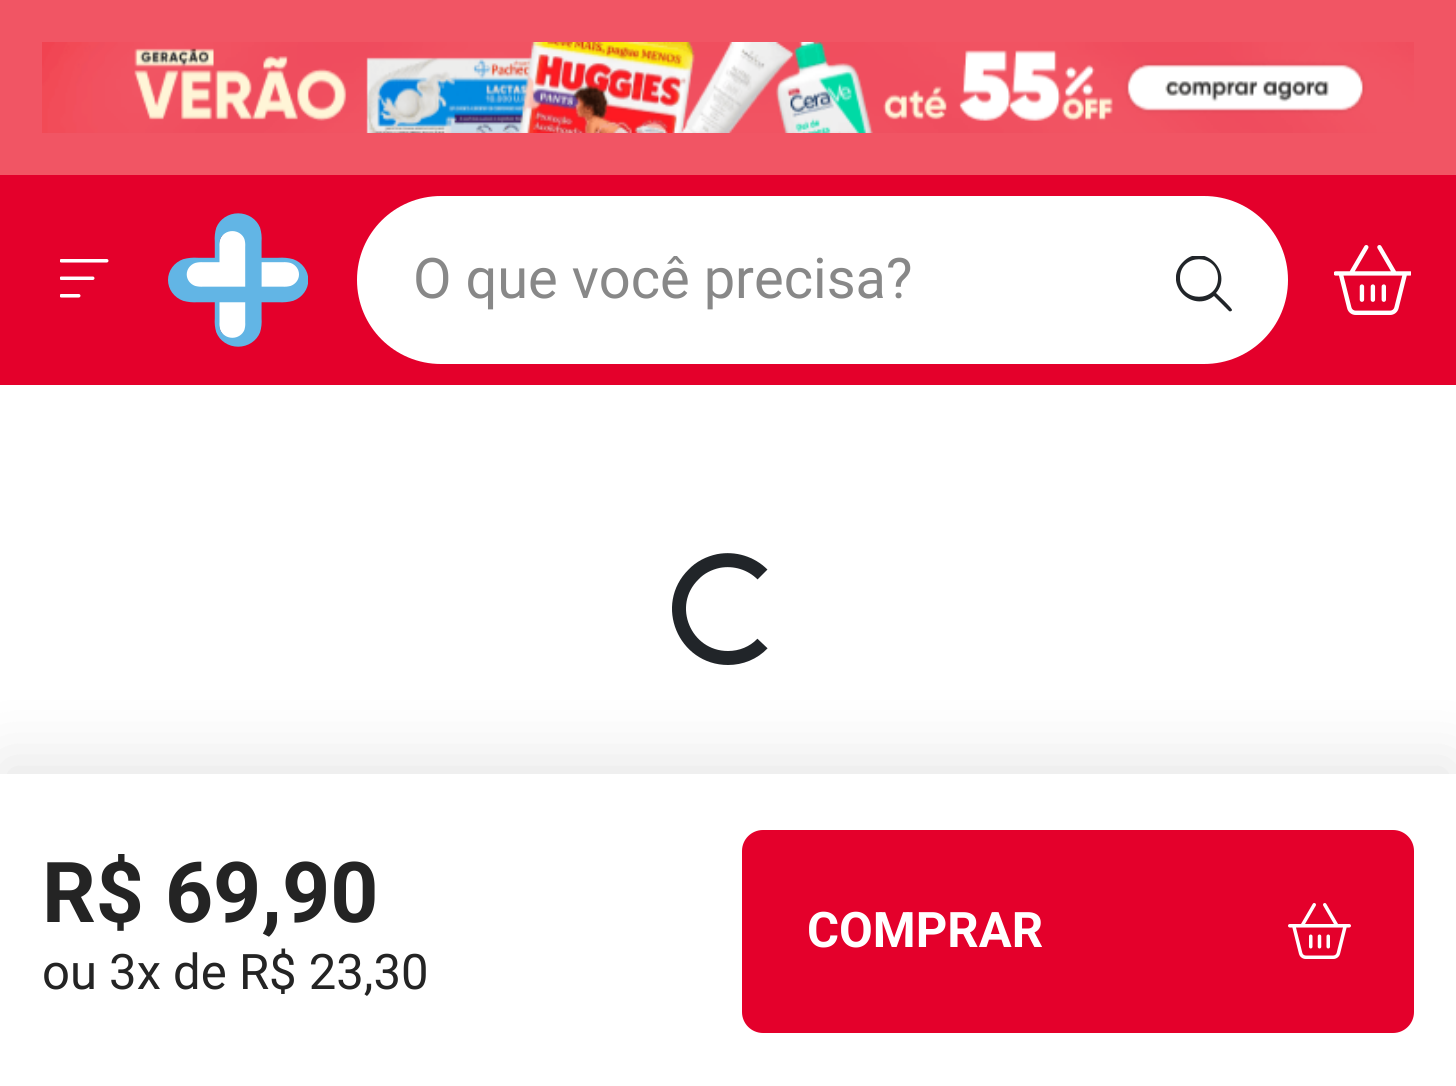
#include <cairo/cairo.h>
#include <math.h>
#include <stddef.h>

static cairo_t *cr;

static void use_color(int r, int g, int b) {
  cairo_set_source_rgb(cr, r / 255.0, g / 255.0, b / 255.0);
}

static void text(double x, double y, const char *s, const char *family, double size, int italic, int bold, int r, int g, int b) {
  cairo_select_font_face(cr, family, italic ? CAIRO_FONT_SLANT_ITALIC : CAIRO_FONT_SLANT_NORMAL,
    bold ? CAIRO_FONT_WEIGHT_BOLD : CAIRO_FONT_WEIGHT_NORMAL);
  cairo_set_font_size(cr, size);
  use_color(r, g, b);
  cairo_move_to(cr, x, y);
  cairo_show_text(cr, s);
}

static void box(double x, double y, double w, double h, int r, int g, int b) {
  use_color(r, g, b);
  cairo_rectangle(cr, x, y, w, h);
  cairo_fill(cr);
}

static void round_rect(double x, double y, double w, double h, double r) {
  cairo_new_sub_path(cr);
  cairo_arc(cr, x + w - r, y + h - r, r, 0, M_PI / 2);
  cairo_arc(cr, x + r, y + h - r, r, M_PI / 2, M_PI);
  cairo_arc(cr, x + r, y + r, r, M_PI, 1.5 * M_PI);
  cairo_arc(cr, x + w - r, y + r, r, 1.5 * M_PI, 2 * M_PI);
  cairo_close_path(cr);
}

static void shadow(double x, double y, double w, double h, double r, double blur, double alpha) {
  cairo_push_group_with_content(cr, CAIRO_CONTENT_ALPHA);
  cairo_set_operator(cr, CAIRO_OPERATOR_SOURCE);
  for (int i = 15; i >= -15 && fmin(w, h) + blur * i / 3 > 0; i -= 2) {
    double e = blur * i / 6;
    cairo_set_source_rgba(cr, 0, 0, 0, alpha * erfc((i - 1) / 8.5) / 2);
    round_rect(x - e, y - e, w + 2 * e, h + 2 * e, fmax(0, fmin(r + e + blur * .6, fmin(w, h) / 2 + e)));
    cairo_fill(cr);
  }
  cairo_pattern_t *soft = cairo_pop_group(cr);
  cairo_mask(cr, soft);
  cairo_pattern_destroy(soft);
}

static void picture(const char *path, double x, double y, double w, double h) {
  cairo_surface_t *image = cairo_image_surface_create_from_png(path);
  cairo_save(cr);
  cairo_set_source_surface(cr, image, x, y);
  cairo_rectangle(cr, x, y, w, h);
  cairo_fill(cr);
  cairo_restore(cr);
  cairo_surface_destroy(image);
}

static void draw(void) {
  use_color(255, 255, 255);
  cairo_paint(cr);
  box(0, 0, 1456, 175, 241, 85, 100);
  picture("img_01.png", 42, 42, 1372, 91);
  box(0, 175, 1456, 210, 228, 0, 43);
  picture("img_02.png", 60, 259, 49, 39);
  picture("img_03.png", 168, 213, 140, 134);
  use_color(255, 255, 255);
  cairo_new_path(cr);
  cairo_move_to(cr, 441, 196);
  cairo_line_to(cr, 1124, 196);
  cairo_line_to(cr, 1124, 364);
  cairo_line_to(cr, 441, 364);
  cairo_curve_to(cr, 394.5, 364, 357, 326.5, 357, 280);
  cairo_curve_to(cr, 357, 233.5, 394.5, 196, 441, 196);
  cairo_close_path(cr);
  cairo_fill(cr);
  cairo_new_path(cr);
  cairo_move_to(cr, 1120, 196);
  cairo_line_to(cr, 1204, 196);
  cairo_curve_to(cr, 1250.5, 196, 1288, 233.5, 1288, 280);
  cairo_curve_to(cr, 1288, 326.5, 1250.5, 364, 1204, 364);
  cairo_line_to(cr, 1120, 364);
  cairo_close_path(cr);
  cairo_fill(cr);
  cairo_save(cr);
  cairo_rectangle(cr, 1176, 256, 56, 56);
  cairo_clip(cr);
  use_color(33, 37, 41);
  cairo_new_path(cr);
  cairo_move_to(cr, 1218, 278);
  cairo_curve_to(cr, 1218, 253, 1180, 253, 1180, 278);
  cairo_curve_to(cr, 1180, 303, 1218, 303, 1218, 278);
  cairo_close_path(cr);
  cairo_move_to(cr, 1214, 296);
  cairo_curve_to(cr, 1192, 314, 1162, 283, 1183, 262);
  cairo_curve_to(cr, 1203, 241, 1234, 272, 1216, 293);
  cairo_curve_to(cr, 1218, 295, 1232, 308, 1232, 310);
  cairo_curve_to(cr, 1232, 311, 1230, 312, 1229, 311);
  cairo_close_path(cr);
  cairo_fill(cr);
  cairo_restore(cr);
  picture("img_04.png", 1334, 245, 77, 70);
  use_color(0, 0, 0);
  shadow(0, 760, 1456, 315, 0, 33, 0.1);
  cairo_new_path(cr);
  cairo_move_to(cr, 762.5, 643.5);
  cairo_curve_to(cr, 753.5, 653, 741, 658, 728, 658);
  cairo_curve_to(cr, 684.5, 658, 662.5, 605, 693.5, 574.5);
  cairo_curve_to(cr, 700, 567.5, 709, 563, 718.5, 561);
  cairo_curve_to(cr, 734.5, 558, 751, 563, 762.5, 574.5);
  use_color(33, 37, 41);
  cairo_set_line_width(cr, 14);
  cairo_stroke(cr);
  box(0, 774, 1456, 312, 255, 255, 255);
  use_color(228, 0, 43);
  round_rect(744, 832, 668, 199, 19);
  cairo_fill_preserve(cr);
  cairo_set_line_width(cr, 4);
  cairo_stroke(cr);
  picture("img_05.png", 1288, 903, 63, 56);
  text(413, 298, "O que você precisa?", "Roboto", 56, 0, 0, 136, 136, 136);
  cairo_save(cr);
  cairo_rectangle(cr, 42, 854, 672, 84);
  cairo_clip(cr);
  text(42, 922, "R$ 69,90", "Roboto", 84, 0, 1, 36, 36, 36);
  cairo_restore(cr);
  text(42, 989, "ou 3x de R$ 23,30", "Roboto", 49, 0, 0, 36, 36, 36);
  text(807, 947, "COMPRAR", "Roboto", 49, 0, 1, 255, 255, 255);
}

int main(void) {
  cairo_surface_t *surface = cairo_image_surface_create(CAIRO_FORMAT_RGB24, 1456, 1086);
  cr = cairo_create(surface);
  cairo_font_options_t *options = cairo_font_options_create();
  cairo_font_options_set_hint_metrics(options, CAIRO_HINT_METRICS_OFF);
  cairo_font_options_set_hint_style(options, CAIRO_HINT_STYLE_NONE);
  cairo_set_font_options(cr, options);
  cairo_set_miter_limit(cr, 4);
  draw();
  cairo_surface_write_to_png(surface, "out.png");
  cairo_font_options_destroy(options);
  cairo_destroy(cr);
  cairo_surface_destroy(surface);
  return 0;
}
